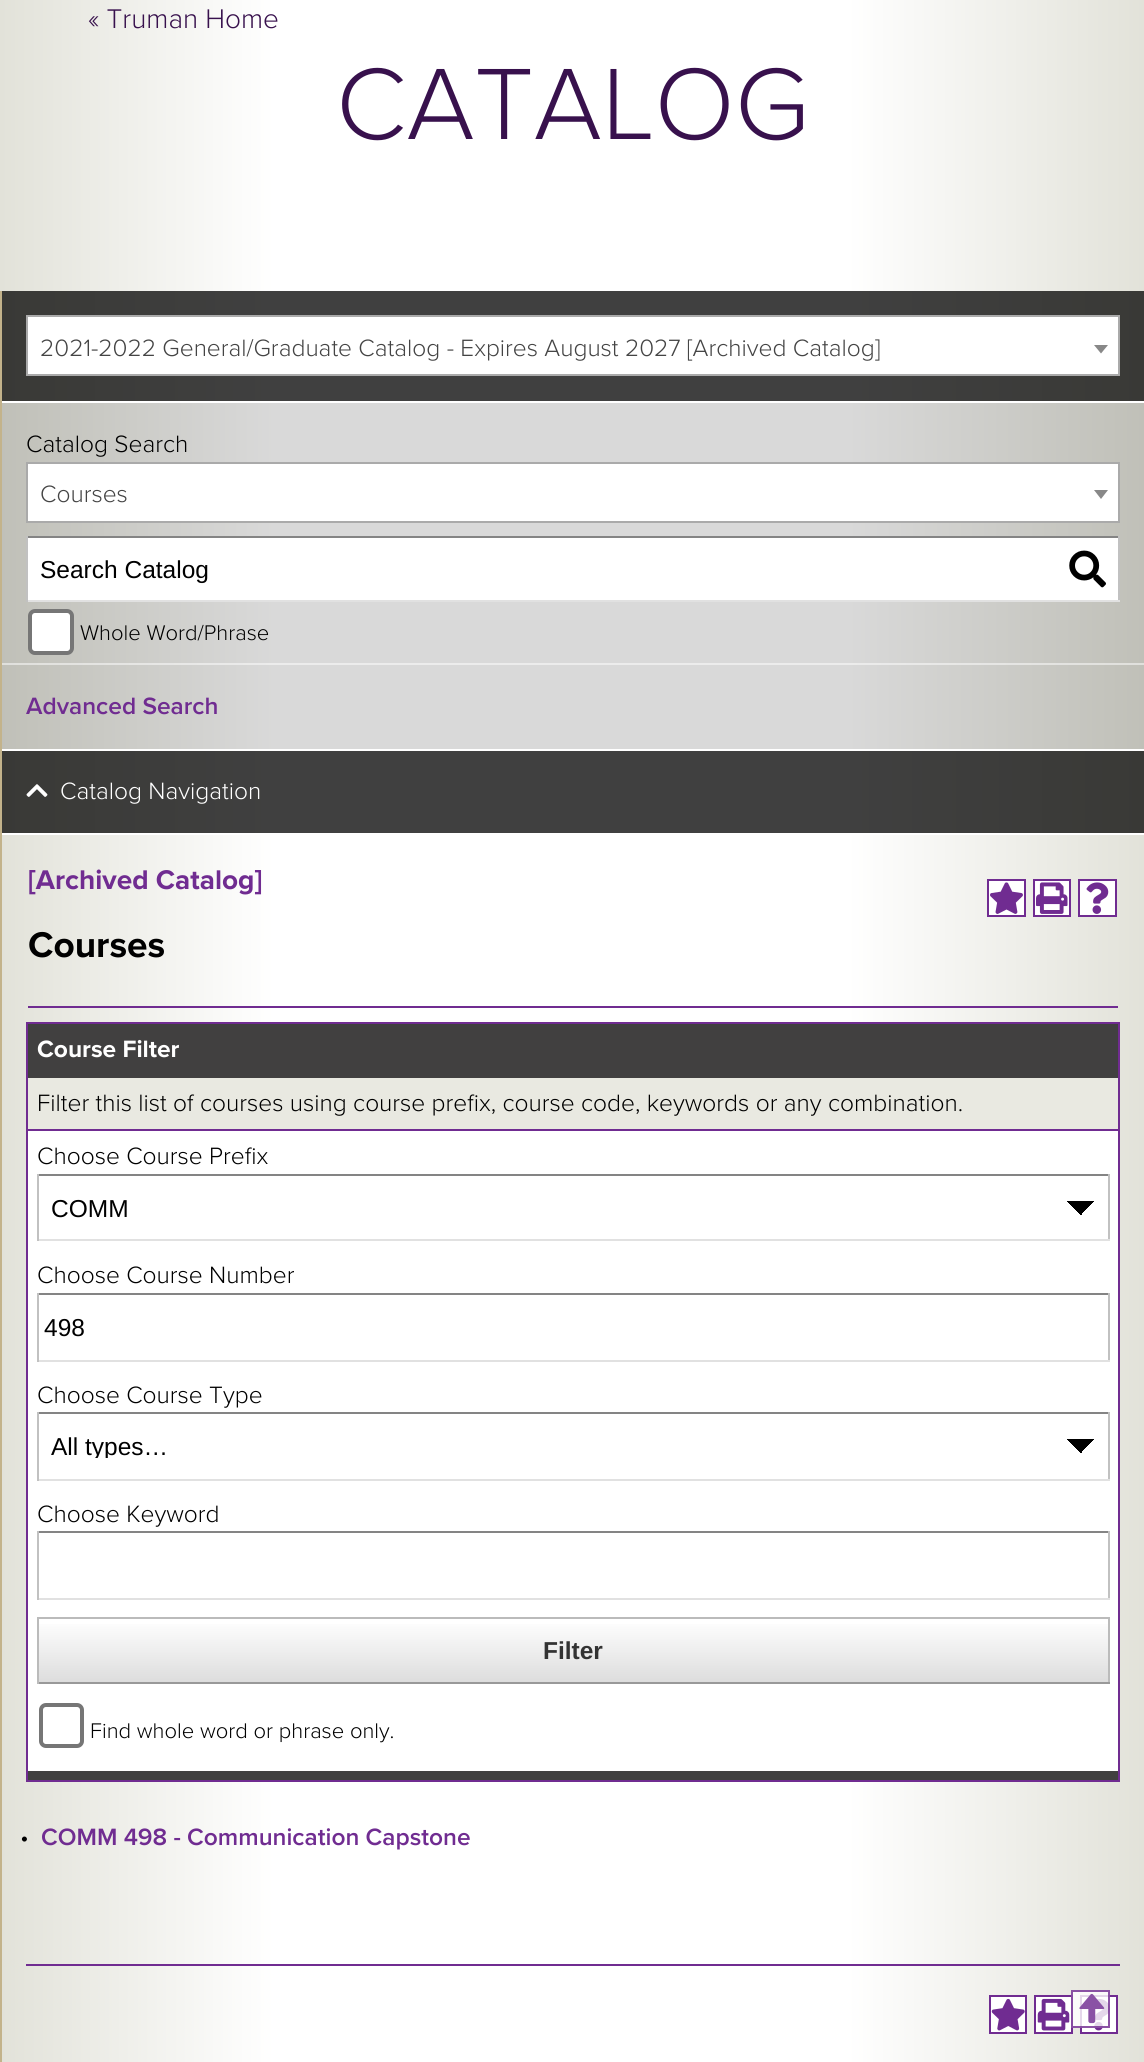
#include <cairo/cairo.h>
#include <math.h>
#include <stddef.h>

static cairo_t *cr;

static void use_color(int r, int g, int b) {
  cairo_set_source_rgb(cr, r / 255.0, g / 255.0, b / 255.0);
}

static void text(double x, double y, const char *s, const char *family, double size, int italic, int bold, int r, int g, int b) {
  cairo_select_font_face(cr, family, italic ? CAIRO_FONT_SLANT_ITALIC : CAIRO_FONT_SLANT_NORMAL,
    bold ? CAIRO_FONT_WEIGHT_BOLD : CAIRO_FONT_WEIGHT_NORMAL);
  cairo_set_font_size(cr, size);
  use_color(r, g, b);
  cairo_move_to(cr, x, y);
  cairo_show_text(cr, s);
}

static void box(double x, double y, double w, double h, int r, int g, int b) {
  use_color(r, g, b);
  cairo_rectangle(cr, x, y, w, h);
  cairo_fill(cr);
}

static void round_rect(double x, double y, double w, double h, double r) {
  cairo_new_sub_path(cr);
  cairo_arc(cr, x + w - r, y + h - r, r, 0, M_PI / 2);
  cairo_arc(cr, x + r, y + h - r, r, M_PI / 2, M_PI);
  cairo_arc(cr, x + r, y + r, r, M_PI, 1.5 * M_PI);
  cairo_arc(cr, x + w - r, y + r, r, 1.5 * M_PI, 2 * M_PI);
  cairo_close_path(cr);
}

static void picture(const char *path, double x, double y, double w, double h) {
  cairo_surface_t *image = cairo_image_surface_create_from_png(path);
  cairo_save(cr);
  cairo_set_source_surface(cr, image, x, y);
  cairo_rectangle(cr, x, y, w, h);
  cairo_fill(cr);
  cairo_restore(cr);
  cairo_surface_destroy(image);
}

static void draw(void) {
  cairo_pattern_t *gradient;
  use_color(255, 255, 255);
  cairo_paint(cr);
  gradient = cairo_pattern_create_linear(0, 952, 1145, 952);
  cairo_pattern_add_color_stop_rgba(gradient, 0, 0.886, 0.886, 0.851, 1);
  cairo_pattern_add_color_stop_rgba(gradient, 0.24, 1, 1, 1, 1);
  cairo_pattern_add_color_stop_rgba(gradient, 0.74, 1, 1, 1, 1);
  cairo_pattern_add_color_stop_rgba(gradient, 1, 0.886, 0.886, 0.851, 1);
  cairo_set_source(cr, gradient);
  cairo_pattern_destroy(gradient);
  cairo_rectangle(cr, 0, 0, 1144, 2062);
  cairo_fill(cr);
  gradient = cairo_pattern_create_linear(0, 952, 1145, 952);
  cairo_pattern_add_color_stop_rgba(gradient, 0, 0.224, 0.224, 0.212, 1);
  cairo_pattern_add_color_stop_rgba(gradient, 0.24, 0.251, 0.251, 0.251, 1);
  cairo_pattern_add_color_stop_rgba(gradient, 0.74, 0.251, 0.251, 0.251, 1);
  cairo_pattern_add_color_stop_rgba(gradient, 1, 0.224, 0.224, 0.212, 1);
  cairo_set_source(cr, gradient);
  cairo_pattern_destroy(gradient);
  cairo_rectangle(cr, 2, 751, 1142, 82);
  cairo_fill(cr);
  gradient = cairo_pattern_create_linear(0, 952, 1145, 952);
  cairo_pattern_add_color_stop_rgba(gradient, 0, 0.753, 0.753, 0.722, 1);
  cairo_pattern_add_color_stop_rgba(gradient, 0.24, 0.851, 0.851, 0.851, 1);
  cairo_pattern_add_color_stop_rgba(gradient, 0.74, 0.851, 0.851, 0.851, 1);
  cairo_pattern_add_color_stop_rgba(gradient, 1, 0.753, 0.753, 0.722, 1);
  cairo_set_source(cr, gradient);
  cairo_pattern_destroy(gradient);
  cairo_rectangle(cr, 2, 403, 1142, 346);
  cairo_fill(cr);
  gradient = cairo_pattern_create_linear(0, 952, 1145, 952);
  cairo_pattern_add_color_stop_rgba(gradient, 0, 0.878, 0.878, 0.863, 1);
  cairo_pattern_add_color_stop_rgba(gradient, 0.24, 0.925, 0.925, 0.925, 1);
  cairo_pattern_add_color_stop_rgba(gradient, 0.74, 0.925, 0.925, 0.925, 1);
  cairo_pattern_add_color_stop_rgba(gradient, 1, 0.878, 0.878, 0.863, 1);
  cairo_set_source(cr, gradient);
  cairo_pattern_destroy(gradient);
  cairo_rectangle(cr, 2, 663, 1142, 2);
  cairo_fill(cr);
  gradient = cairo_pattern_create_linear(0, 952, 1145, 952);
  cairo_pattern_add_color_stop_rgba(gradient, 0, 0.224, 0.224, 0.212, 1);
  cairo_pattern_add_color_stop_rgba(gradient, 0.24, 0.251, 0.251, 0.251, 1);
  cairo_pattern_add_color_stop_rgba(gradient, 0.74, 0.251, 0.251, 0.251, 1);
  cairo_pattern_add_color_stop_rgba(gradient, 1, 0.224, 0.224, 0.212, 1);
  cairo_set_source(cr, gradient);
  cairo_pattern_destroy(gradient);
  cairo_rectangle(cr, 2, 291, 1142, 110);
  cairo_fill(cr);
  box(0, 291, 2, 1771, 195, 179, 139);
  box(2, 401, 1142, 2, 255, 255, 255);
  cairo_rectangle(cr, 27, 316, 1092, 59);
  cairo_fill_preserve(cr);
  use_color(170, 170, 170);
  cairo_stroke(cr);
  use_color(136, 136, 136);
  cairo_new_path(cr);
  cairo_move_to(cr, 1094, 345);
  cairo_line_to(cr, 1108, 345);
  cairo_line_to(cr, 1101, 353.5);
  cairo_close_path(cr);
  cairo_fill(cr);
  box(2, 749, 1142, 2, 255, 255, 255);
  cairo_rectangle(cr, 27, 463, 1092, 59);
  cairo_fill_preserve(cr);
  use_color(170, 170, 170);
  cairo_stroke(cr);
  use_color(136, 136, 136);
  cairo_new_path(cr);
  cairo_move_to(cr, 1094, 490);
  cairo_line_to(cr, 1108, 490);
  cairo_line_to(cr, 1101, 499);
  cairo_close_path(cr);
  cairo_fill(cr);
  box(28, 538, 1090, 62, 255, 255, 255);
  box(26, 536, 1094, 2, 132, 132, 132);
  box(1118, 536, 2, 66, 193, 193, 193);
  box(26, 600, 1094, 2, 225, 225, 225);
  box(26, 536, 2, 66, 193, 193, 193);
  picture("img_01.png", 1069, 550, 37, 38);
  use_color(255, 255, 255);
  round_rect(30, 611, 42, 42, 5);
  cairo_fill_preserve(cr);
  use_color(118, 118, 118);
  cairo_set_line_width(cr, 4);
  cairo_stroke(cr);
  box(2, 833, 1142, 2, 255, 255, 255);
  picture("img_02.png", 26, 784, 22, 13);
  cairo_rectangle(cr, 988, 880, 37, 36);
  cairo_fill_preserve(cr);
  use_color(112, 44, 145);
  cairo_set_line_width(cr, 2);
  cairo_stroke(cr);
  picture("img_03.png", 990, 882, 33, 32);
  use_color(255, 255, 255);
  cairo_rectangle(cr, 1034, 880, 36, 36);
  cairo_fill_preserve(cr);
  use_color(112, 44, 145);
  cairo_stroke(cr);
  picture("img_04.png", 1036, 882, 32, 32);
  use_color(255, 255, 255);
  cairo_rectangle(cr, 1079, 880, 37, 36);
  cairo_fill_preserve(cr);
  use_color(112, 44, 145);
  cairo_stroke(cr);
  picture("img_05.png", 1086, 882, 23, 32);
  box(28, 1006, 1090, 2, 112, 44, 145);
  cairo_rectangle(cr, 27, 1023, 1092, 758);
  cairo_stroke(cr);
  box(28, 1024, 1090, 54, 65, 64, 64);
  box(28, 1078, 1090, 51, 233, 233, 225);
  box(28, 1129, 1090, 2, 112, 44, 145);
  box(28, 1131, 1090, 640, 255, 255, 255);
  gradient = cairo_pattern_create_linear(1080, 1201, 1094, 1215);
  cairo_pattern_add_color_stop_rgba(gradient, 0.5, 0, 0, 0, 1);
  cairo_pattern_add_color_stop_rgba(gradient, 0.5, 1, 1, 1, 1);
  cairo_set_source(cr, gradient);
  cairo_pattern_destroy(gradient);
  cairo_rectangle(cr, 1082, 1201, 12, 12);
  cairo_fill(cr);
  gradient = cairo_pattern_create_linear(1066, 1215, 1081, 1201);
  cairo_pattern_add_color_stop_rgba(gradient, 0.5, 0, 0, 0, 0);
  cairo_pattern_add_color_stop_rgba(gradient, 0.5, 0, 0, 0, 1);
  cairo_set_source(cr, gradient);
  cairo_pattern_destroy(gradient);
  cairo_rectangle(cr, 1067, 1201, 15, 14);
  cairo_fill(cr);
  box(37, 1174, 1073, 2, 132, 132, 132);
  box(1108, 1174, 2, 67, 193, 193, 193);
  box(37, 1239, 1073, 2, 225, 225, 225);
  box(37, 1174, 2, 67, 193, 193, 193);
  box(37, 1293, 1073, 2, 132, 132, 132);
  box(1108, 1293, 2, 69, 193, 193, 193);
  box(37, 1360, 1073, 2, 225, 225, 225);
  box(37, 1293, 2, 69, 193, 193, 193);
  gradient = cairo_pattern_create_linear(1080, 1439, 1094, 1453);
  cairo_pattern_add_color_stop_rgba(gradient, 0.5, 0, 0, 0, 1);
  cairo_pattern_add_color_stop_rgba(gradient, 0.5, 1, 1, 1, 1);
  cairo_set_source(cr, gradient);
  cairo_pattern_destroy(gradient);
  cairo_rectangle(cr, 1082, 1439, 12, 12);
  cairo_fill(cr);
  gradient = cairo_pattern_create_linear(1066, 1453, 1081, 1439);
  cairo_pattern_add_color_stop_rgba(gradient, 0.5, 0, 0, 0, 0);
  cairo_pattern_add_color_stop_rgba(gradient, 0.5, 0, 0, 0, 1);
  cairo_set_source(cr, gradient);
  cairo_pattern_destroy(gradient);
  cairo_rectangle(cr, 1067, 1439, 15, 14);
  cairo_fill(cr);
  box(37, 1412, 1073, 2, 132, 132, 132);
  box(1108, 1412, 2, 69, 193, 193, 193);
  box(37, 1479, 1073, 2, 225, 225, 225);
  box(37, 1412, 2, 69, 193, 193, 193);
  box(37, 1531, 1073, 2, 132, 132, 132);
  box(1108, 1531, 2, 69, 193, 193, 193);
  box(37, 1598, 1073, 2, 225, 225, 225);
  box(37, 1531, 2, 69, 193, 193, 193);
  gradient = cairo_pattern_create_linear(573, 1619, 573, 1682);
  cairo_pattern_add_color_stop_rgba(gradient, 0, 1, 1, 1, 1);
  cairo_pattern_add_color_stop_rgba(gradient, 1, 0.867, 0.867, 0.867, 1);
  cairo_set_source(cr, gradient);
  cairo_pattern_destroy(gradient);
  cairo_rectangle(cr, 39, 1624, 1069, 58);
  cairo_fill(cr);
  box(37, 1617, 1073, 2, 187, 187, 187);
  box(1108, 1617, 2, 67, 187, 187, 187);
  box(37, 1682, 1073, 2, 153, 153, 153);
  box(37, 1617, 2, 67, 187, 187, 187);
  round_rect(41, 1705, 41, 41, 5);
  use_color(118, 118, 118);
  cairo_set_line_width(cr, 4);
  cairo_stroke(cr);
  box(28, 1771, 1090, 9, 65, 64, 64);
  box(26, 1964, 1094, 2, 112, 44, 145);
  use_color(255, 255, 255);
  cairo_rectangle(cr, 990, 1996, 36, 37);
  cairo_fill_preserve(cr);
  use_color(112, 44, 145);
  cairo_set_line_width(cr, 2);
  cairo_stroke(cr);
  picture("img_06.png", 991, 1998, 34, 33);
  use_color(255, 255, 255);
  cairo_rectangle(cr, 1035, 1996, 37, 37);
  cairo_fill_preserve(cr);
  use_color(112, 44, 145);
  cairo_stroke(cr);
  picture("img_07.png", 1037, 1998, 33, 33);
  use_color(255, 255, 255);
  cairo_rectangle(cr, 1081, 1996, 36, 37);
  cairo_fill_preserve(cr);
  use_color(112, 44, 145);
  cairo_stroke(cr);
  picture("img_08.png", 1088, 1998, 22, 33);
  cairo_set_source_rgba(cr, 1, 1, 1, 0.81);
  cairo_rectangle(cr, 1071, 1990, 39, 38);
  cairo_fill(cr);
  cairo_rectangle(cr, 1072, 1991, 37, 36);
  cairo_set_source_rgba(cr, 0.439, 0.173, 0.569, 0.81);
  cairo_stroke(cr);
  text(88, 28, "« Truman Home", "Proxima Nova Light", 28, 0, 0, 56, 17, 77);
  text(336, 139, "CATALOG", "Proxima Nova Light", 105, 0, 0, 56, 17, 77);
  text(40, 356, "2021-2022 General/Graduate Catalog - Expires August 2027 [Archived Catalog]", "Proxima Nova Light", 24.5, 0, 0, 68, 68, 68);
  text(26, 452, "Catalog Search", "Proxima Nova Light", 24.5, 0, 0, 0, 0, 0);
  text(40, 502, "Courses", "Proxima Nova Light", 24.5, 0, 0, 68, 68, 68);
  text(40, 578, "Search Catalog", "Liberation Sans", 24.5, 0, 0, 0, 0, 0);
  text(80, 640, "Whole Word/Phrase", "Proxima Nova Light", 22, 0, 0, 0, 0, 0);
  text(26, 714, "Advanced Search", "Proxima Nova SemiBold", 24.5, 0, 0, 112, 44, 145);
  text(60, 799, "Catalog Navigation", "Proxima Nova Light", 24.5, 0, 0, 255, 255, 255);
  text(28, 889, "[Archived Catalog]", "Proxima Nova", 28, 0, 1, 112, 44, 145);
  text(28, 957, "Courses", "Proxima Nova", 37, 0, 1, 0, 0, 0);
  text(37, 1057, "Course Filter", "Proxima Nova", 24.5, 0, 1, 255, 255, 255);
  text(37, 1111, "Filter this list of courses using course prefix, course code, keywords or any combination.", "Proxima Nova Light", 24.5, 0, 0, 0, 0, 0);
  text(37, 1164, "Choose Course Prefix", "Proxima Nova Light", 24.5, 0, 0, 0, 0, 0);
  text(51, 1217, "COMM", "Liberation Sans", 24.5, 0, 0, 0, 0, 0);
  text(37, 1283, "Choose Course Number", "Proxima Nova Light", 24.5, 0, 0, 0, 0, 0);
  text(44, 1336, "498", "Liberation Sans", 24.5, 0, 0, 0, 0, 0);
  text(37, 1403, "Choose Course Type", "Proxima Nova Light", 24.5, 0, 0, 0, 0, 0);
  cairo_save(cr);
  cairo_rectangle(cr, 51, 1433, 1003, 25);
  cairo_clip(cr);
  text(51, 1455, "All types…", "Liberation Sans", 24.5, 0, 0, 0, 0, 0);
  cairo_restore(cr);
  text(37, 1522, "Choose Keyword", "Proxima Nova Light", 24.5, 0, 0, 0, 0, 0);
  text(543, 1659, "Filter", "Liberation Sans", 24.5, 0, 1, 51, 51, 51);
  text(90, 1738, "Find whole word or phrase only.", "Proxima Nova Light", 22, 0, 0, 0, 0, 0);
  text(20, 1845, "•", "Proxima Nova Light", 24.5, 0, 0, 0, 0, 0);
  text(41, 1845, "COMM 498 - Communication Capstone", "Proxima Nova SemiBold", 24.5, 0, 0, 112, 44, 145);
  text(1075, 2018, "T", "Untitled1 Medium", 32, 0, 0, 138, 82, 165);
}

int main(void) {
  cairo_surface_t *surface = cairo_image_surface_create(CAIRO_FORMAT_RGB24, 1144, 2062);
  cr = cairo_create(surface);
  cairo_font_options_t *options = cairo_font_options_create();
  cairo_font_options_set_hint_metrics(options, CAIRO_HINT_METRICS_OFF);
  cairo_font_options_set_hint_style(options, CAIRO_HINT_STYLE_NONE);
  cairo_set_font_options(cr, options);
  cairo_set_miter_limit(cr, 4);
  draw();
  cairo_surface_write_to_png(surface, "out.png");
  cairo_font_options_destroy(options);
  cairo_destroy(cr);
  cairo_surface_destroy(surface);
  return 0;
}
